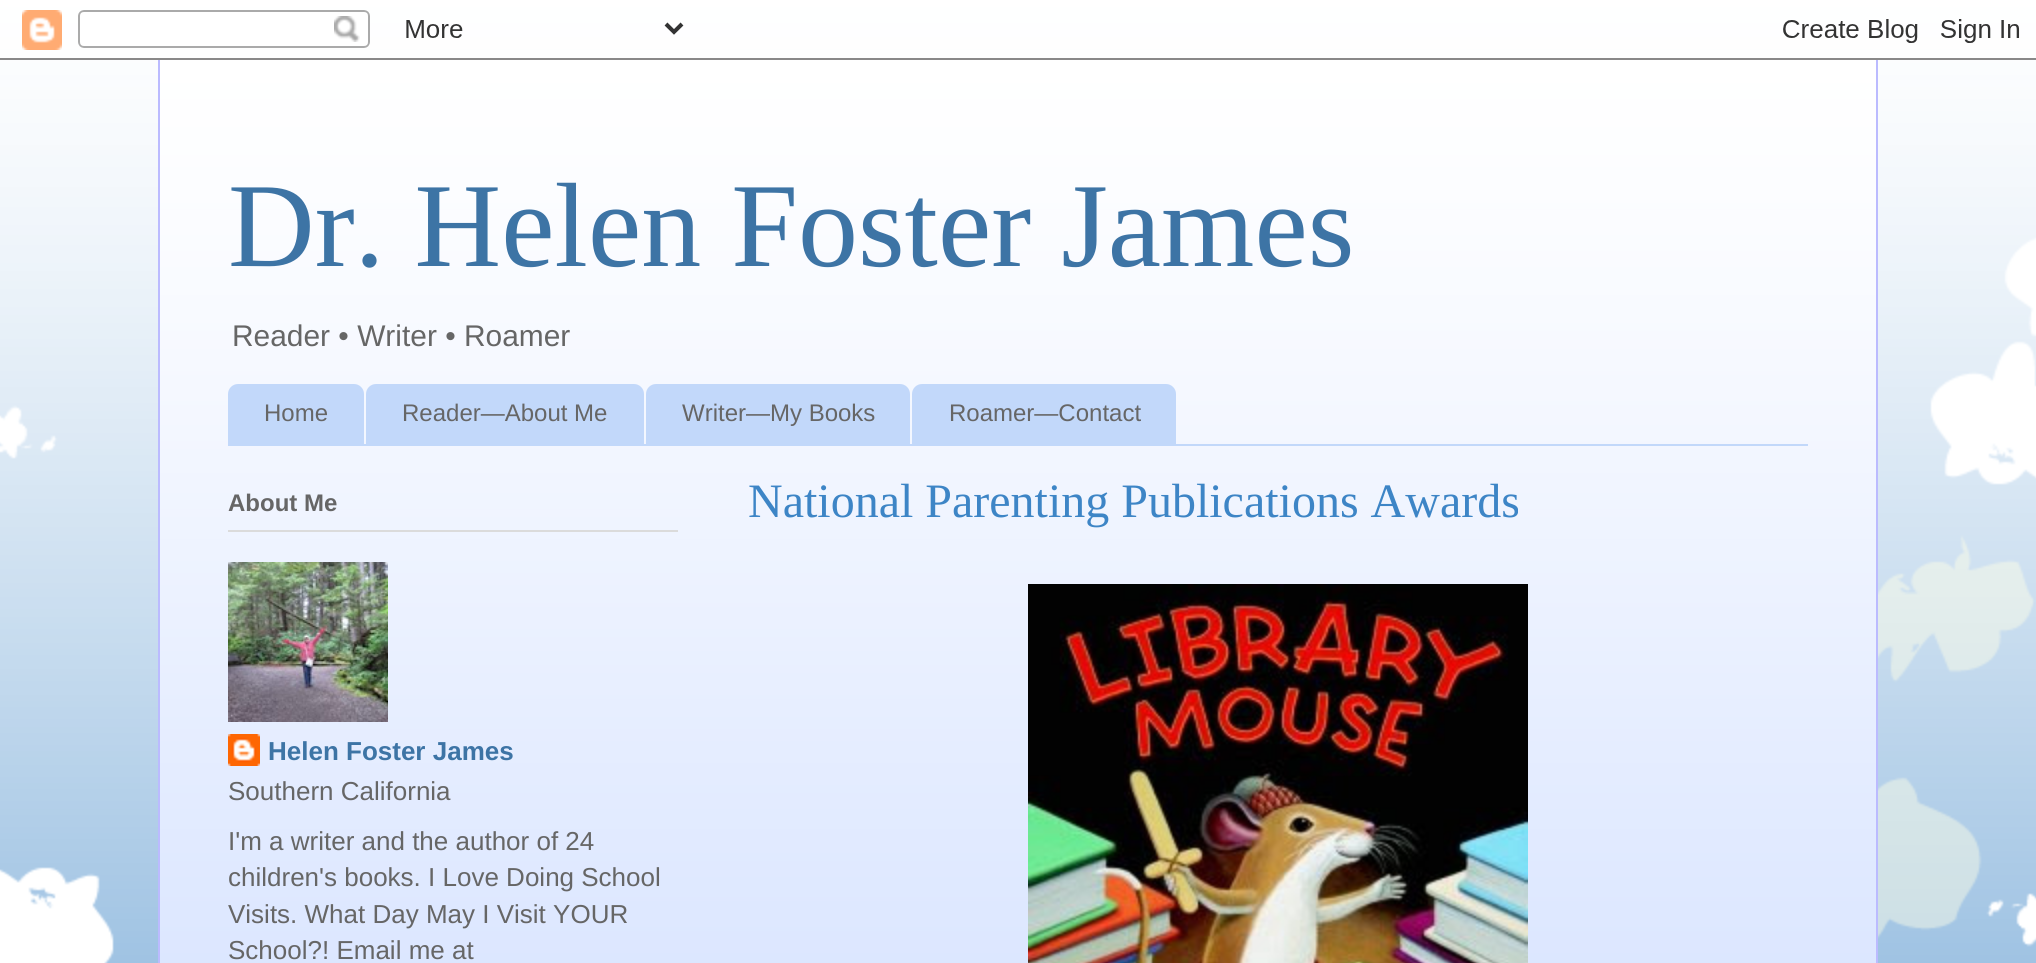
#include <cairo/cairo.h>
#include <math.h>
#include <stddef.h>

static cairo_t *cr;

static void use_color(int r, int g, int b) {
  cairo_set_source_rgb(cr, r / 255.0, g / 255.0, b / 255.0);
}

static void text(double x, double y, const char *s, const char *family, double size, int italic, int bold, int r, int g, int b) {
  cairo_select_font_face(cr, family, italic ? CAIRO_FONT_SLANT_ITALIC : CAIRO_FONT_SLANT_NORMAL,
    bold ? CAIRO_FONT_WEIGHT_BOLD : CAIRO_FONT_WEIGHT_NORMAL);
  cairo_set_font_size(cr, size);
  use_color(r, g, b);
  cairo_move_to(cr, x, y);
  cairo_show_text(cr, s);
}

static void box(double x, double y, double w, double h, int r, int g, int b) {
  use_color(r, g, b);
  cairo_rectangle(cr, x, y, w, h);
  cairo_fill(cr);
}

static void picture(const char *path, double x, double y, double w, double h) {
  cairo_surface_t *image = cairo_image_surface_create_from_png(path);
  cairo_save(cr);
  cairo_set_source_surface(cr, image, x, y);
  cairo_rectangle(cr, x, y, w, h);
  cairo_fill(cr);
  cairo_restore(cr);
  cairo_surface_destroy(image);
}

static void draw(void) {
  use_color(61, 133, 198);
  cairo_paint(cr);
  picture("img_01.png", 0, 0, 2036, 963);
  picture("img_02.png", 0, 10, 2036, 50);
  box(160, 73, 1716, 890, 212, 225, 255);
  picture("img_03.png", 160, 60, 1716, 903);
  box(1876, 60, 2, 903, 187, 187, 255);
  box(158, 60, 2, 903, 187, 187, 255);
  box(228, 444, 1580, 2, 194, 216, 250);
  cairo_new_path(cr);
  cairo_move_to(cr, 238, 384);
  cairo_line_to(cr, 354, 384);
  cairo_curve_to(cr, 359.5, 384, 364, 388.5, 364, 394);
  cairo_line_to(cr, 364, 444);
  cairo_line_to(cr, 228, 444);
  cairo_line_to(cr, 228, 394);
  cairo_curve_to(cr, 228, 388.5, 232.5, 384, 238, 384);
  cairo_close_path(cr);
  cairo_fill(cr);
  cairo_new_path(cr);
  cairo_move_to(cr, 376, 384);
  cairo_line_to(cr, 634, 384);
  cairo_curve_to(cr, 639.5, 384, 644, 388.5, 644, 394);
  cairo_line_to(cr, 644, 444);
  cairo_line_to(cr, 366, 444);
  cairo_line_to(cr, 366, 394);
  cairo_curve_to(cr, 366, 388.5, 370.5, 384, 376, 384);
  cairo_close_path(cr);
  cairo_fill(cr);
  cairo_new_path(cr);
  cairo_move_to(cr, 656, 384);
  cairo_line_to(cr, 900, 384);
  cairo_curve_to(cr, 905.5, 384, 910, 388.5, 910, 394);
  cairo_line_to(cr, 910, 444);
  cairo_line_to(cr, 646, 444);
  cairo_line_to(cr, 646, 394);
  cairo_curve_to(cr, 646, 388.5, 650.5, 384, 656, 384);
  cairo_close_path(cr);
  cairo_fill(cr);
  cairo_new_path(cr);
  cairo_move_to(cr, 922, 384);
  cairo_line_to(cr, 1166, 384);
  cairo_curve_to(cr, 1171.5, 384, 1176, 388.5, 1176, 394);
  cairo_line_to(cr, 1176, 444);
  cairo_line_to(cr, 912, 444);
  cairo_line_to(cr, 912, 394);
  cairo_curve_to(cr, 912, 388.5, 916.5, 384, 922, 384);
  cairo_close_path(cr);
  cairo_fill(cr);
  box(228, 530, 450, 2, 219, 219, 219);
  picture("img_04.png", 228, 562, 160, 160);
  picture("img_05.png", 228, 734, 32, 32);
  picture("img_06.png", 1028, 584, 500, 379);
  text(228, 266, "Dr. Helen Foster James", "Liberation Serif", 120, 0, 0, 61, 116, 165);
  text(232, 346, "Reader • Writer • Roamer", "Liberation Sans", 29.9, 0, 0, 102, 102, 102);
  text(264, 421, "Home", "Liberation Sans", 24, 0, 0, 102, 102, 102);
  text(402, 421, "Reader—About Me", "Liberation Sans", 24, 0, 0, 102, 102, 102);
  text(682, 421, "Writer—My Books", "Liberation Sans", 24, 0, 0, 102, 102, 102);
  text(949, 421, "Roamer—Contact", "Liberation Sans", 24, 0, 0, 102, 102, 102);
  text(228, 511, "About Me", "Liberation Sans", 24, 0, 1, 102, 102, 102);
  text(268, 760, "Helen Foster James", "Liberation Sans", 26, 0, 1, 61, 116, 165);
  text(228, 800, "Southern California", "Liberation Sans", 26, 0, 0, 102, 102, 102);
  text(228, 850, "I'm a writer and the author of 24", "Liberation Sans", 26, 0, 0, 102, 102, 102);
  text(228, 886, "children's books. I Love Doing School", "Liberation Sans", 26, 0, 0, 102, 102, 102);
  text(228, 923, "Visits. What Day May I Visit YOUR", "Liberation Sans", 26, 0, 0, 102, 102, 102);
  text(228, 959, "School?! Email me at", "Liberation Sans", 26, 0, 0, 102, 102, 102);
  text(748, 517, "National Parenting Publications Awards", "Liberation Serif", 48, 0, 0, 61, 133, 198);
}

int main(void) {
  cairo_surface_t *surface = cairo_image_surface_create(CAIRO_FORMAT_RGB24, 2036, 963);
  cr = cairo_create(surface);
  cairo_font_options_t *options = cairo_font_options_create();
  cairo_font_options_set_hint_metrics(options, CAIRO_HINT_METRICS_OFF);
  cairo_font_options_set_hint_style(options, CAIRO_HINT_STYLE_NONE);
  cairo_set_font_options(cr, options);
  cairo_set_miter_limit(cr, 4);
  draw();
  cairo_surface_write_to_png(surface, "out.png");
  cairo_font_options_destroy(options);
  cairo_destroy(cr);
  cairo_surface_destroy(surface);
  return 0;
}
